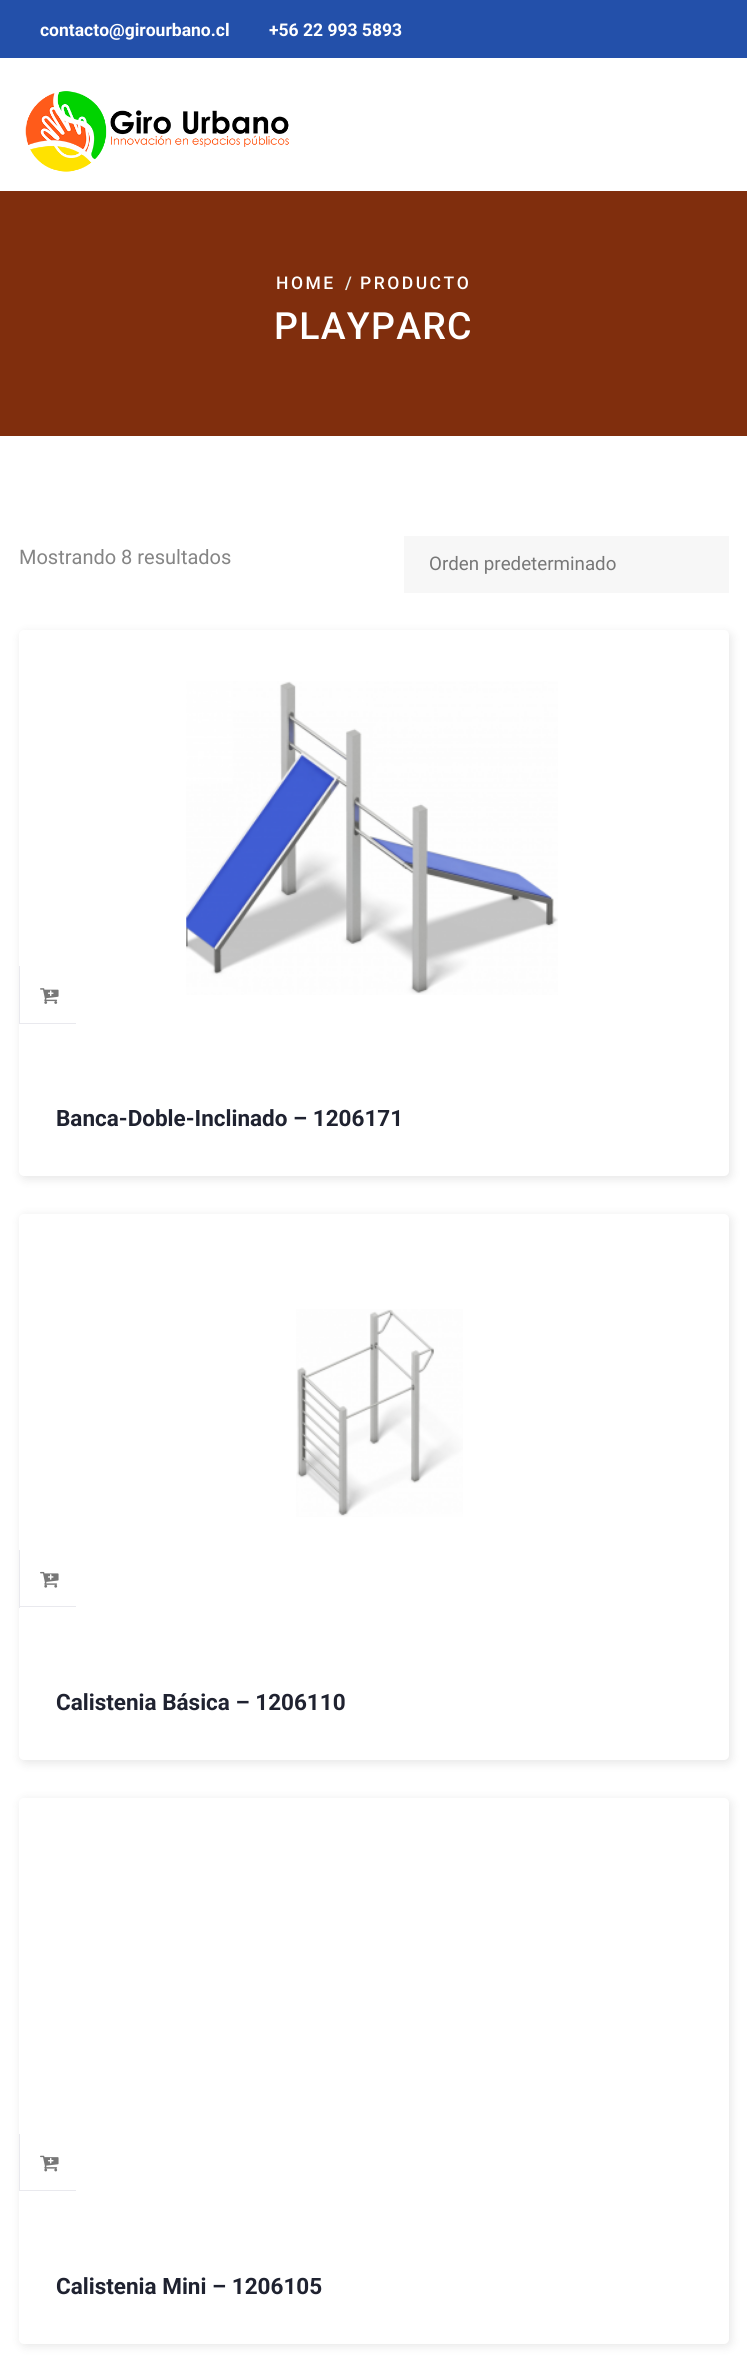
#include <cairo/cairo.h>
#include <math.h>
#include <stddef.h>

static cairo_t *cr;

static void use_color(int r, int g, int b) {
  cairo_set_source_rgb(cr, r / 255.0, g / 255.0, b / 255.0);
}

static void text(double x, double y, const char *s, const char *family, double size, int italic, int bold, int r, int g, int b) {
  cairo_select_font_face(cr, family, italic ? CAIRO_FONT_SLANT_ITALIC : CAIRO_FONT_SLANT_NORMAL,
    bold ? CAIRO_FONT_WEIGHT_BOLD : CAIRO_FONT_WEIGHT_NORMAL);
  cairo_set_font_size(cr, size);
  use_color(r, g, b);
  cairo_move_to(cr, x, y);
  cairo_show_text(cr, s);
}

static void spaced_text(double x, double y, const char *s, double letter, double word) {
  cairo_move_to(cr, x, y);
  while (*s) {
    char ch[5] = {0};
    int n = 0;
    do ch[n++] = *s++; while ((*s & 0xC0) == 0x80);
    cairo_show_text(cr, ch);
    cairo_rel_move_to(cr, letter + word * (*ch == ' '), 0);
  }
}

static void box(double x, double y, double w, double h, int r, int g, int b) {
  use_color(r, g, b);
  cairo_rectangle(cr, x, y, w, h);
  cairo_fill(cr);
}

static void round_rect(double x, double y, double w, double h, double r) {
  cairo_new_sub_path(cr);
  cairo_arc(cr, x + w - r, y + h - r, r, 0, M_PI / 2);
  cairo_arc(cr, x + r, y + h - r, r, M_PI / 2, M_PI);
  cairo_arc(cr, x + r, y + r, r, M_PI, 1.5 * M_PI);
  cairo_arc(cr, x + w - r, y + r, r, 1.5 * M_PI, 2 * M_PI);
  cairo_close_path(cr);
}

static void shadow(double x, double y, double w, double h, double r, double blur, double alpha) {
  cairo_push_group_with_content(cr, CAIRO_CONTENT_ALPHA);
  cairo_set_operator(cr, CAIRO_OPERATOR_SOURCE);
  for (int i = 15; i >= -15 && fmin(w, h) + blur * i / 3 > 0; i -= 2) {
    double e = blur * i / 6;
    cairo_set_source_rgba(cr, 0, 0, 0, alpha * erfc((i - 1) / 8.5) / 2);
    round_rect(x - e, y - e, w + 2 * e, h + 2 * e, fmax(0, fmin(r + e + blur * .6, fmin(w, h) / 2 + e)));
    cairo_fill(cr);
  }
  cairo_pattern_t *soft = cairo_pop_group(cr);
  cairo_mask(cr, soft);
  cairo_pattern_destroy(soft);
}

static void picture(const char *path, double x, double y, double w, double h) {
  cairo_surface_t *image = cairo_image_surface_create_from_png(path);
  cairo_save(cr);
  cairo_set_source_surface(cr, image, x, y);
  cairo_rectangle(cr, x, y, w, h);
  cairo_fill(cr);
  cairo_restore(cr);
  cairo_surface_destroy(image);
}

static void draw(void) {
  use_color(255, 255, 255);
  cairo_paint(cr);
  box(0, 0, 747, 58, 35, 80, 170);
  picture("img_01.png", 25, 91, 264, 81);
  box(0, 191, 747, 245, 128, 46, 13);
  box(404, 536, 325, 57, 247, 247, 247);
  use_color(0, 0, 0);
  shadow(21, 633, 710, 546, 5, 5, 0.1);
  use_color(255, 255, 255);
  round_rect(19, 630, 710, 546, 5);
  cairo_fill(cr);
  box(19, 1023, 57, 1, 233, 233, 238);
  box(19, 966, 1, 58, 233, 233, 238);
  picture("img_02.png", 40, 988, 19, 16);
  picture("img_03.png", 186, 681, 372, 314);
  use_color(0, 0, 0);
  shadow(21, 1216, 710, 547, 5, 5, 0.1);
  use_color(255, 255, 255);
  round_rect(19, 1214, 710, 546, 5);
  cairo_fill(cr);
  picture("img_04.png", 296, 1309, 167, 208);
  box(19, 1606, 57, 1, 233, 233, 238);
  box(19, 1550, 1, 58, 233, 233, 238);
  picture("img_05.png", 40, 1571, 19, 17);
  use_color(0, 0, 0);
  shadow(21, 1800, 710, 546, 5, 5, 0.1);
  use_color(255, 255, 255);
  round_rect(19, 1798, 710, 546, 5);
  cairo_fill(cr);
  box(19, 2190, 57, 1, 233, 233, 238);
  box(19, 2134, 1, 57, 233, 233, 238);
  picture("img_06.png", 40, 2155, 19, 17);
  text(40, 36, "contacto@girourbano.cl", "Roboto", 17.5, 0, 1, 255, 255, 255);
  text(269, 36, "+56 22 993 5893", "Roboto", 17.5, 0, 1, 255, 255, 255);
  cairo_select_font_face(cr, "Roboto Medium", CAIRO_FONT_SLANT_NORMAL, CAIRO_FONT_WEIGHT_NORMAL);
  spaced_text(276, 289, "HOME", 2.5, 0);
  use_color(229, 238, 236);
  spaced_text(345, 289, "/", 2.5, 0);
  use_color(255, 255, 255);
  spaced_text(360, 289, "PRODUCTO", 2.5, 0);
  cairo_set_font_size(cr, 37.5);
  spaced_text(274, 339, "PLAYPARC", 1.25, 0);
  text(19, 564, "Mostrando 8 resultados", "Roboto", 20, 0, 0, 133, 133, 133);
  text(429, 570, "Orden predeterminado", "Roboto", 18.75, 0, 0, 119, 119, 119);
  text(56, 1126, "Banca-Doble-Inclinado – 1206171", "Roboto", 22.5, 0, 1, 31, 34, 48);
  text(56, 1710, "Calistenia Básica – 1206110", "Roboto", 22.5, 0, 1, 31, 34, 48);
  text(56, 2294, "Calistenia Mini – 1206105", "Roboto", 22.5, 0, 1, 31, 34, 48);
}

int main(void) {
  cairo_surface_t *surface = cairo_image_surface_create(CAIRO_FORMAT_RGB24, 747, 2380);
  cr = cairo_create(surface);
  cairo_font_options_t *options = cairo_font_options_create();
  cairo_font_options_set_hint_metrics(options, CAIRO_HINT_METRICS_OFF);
  cairo_font_options_set_hint_style(options, CAIRO_HINT_STYLE_NONE);
  cairo_set_font_options(cr, options);
  cairo_set_miter_limit(cr, 4);
  draw();
  cairo_surface_write_to_png(surface, "out.png");
  cairo_font_options_destroy(options);
  cairo_destroy(cr);
  cairo_surface_destroy(surface);
  return 0;
}
